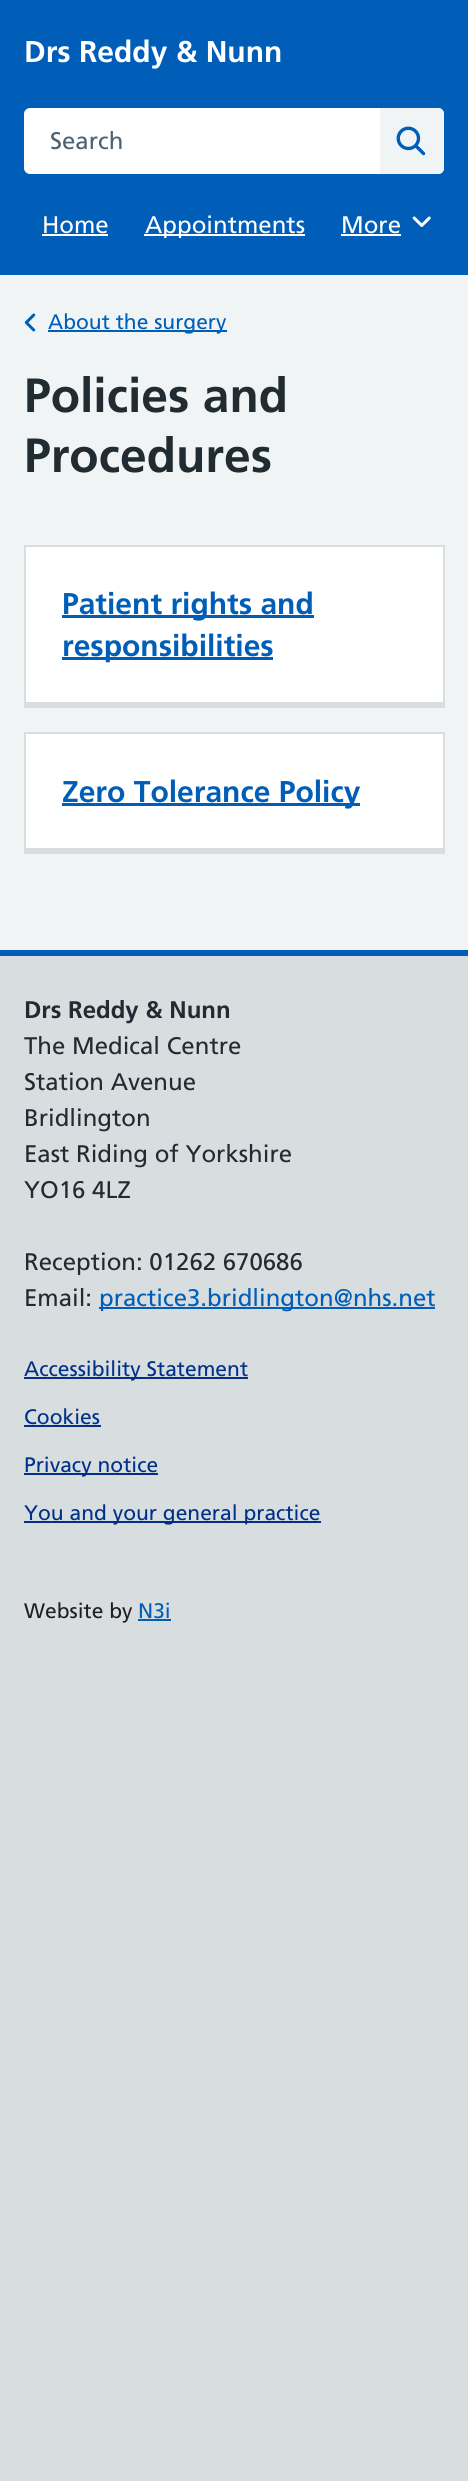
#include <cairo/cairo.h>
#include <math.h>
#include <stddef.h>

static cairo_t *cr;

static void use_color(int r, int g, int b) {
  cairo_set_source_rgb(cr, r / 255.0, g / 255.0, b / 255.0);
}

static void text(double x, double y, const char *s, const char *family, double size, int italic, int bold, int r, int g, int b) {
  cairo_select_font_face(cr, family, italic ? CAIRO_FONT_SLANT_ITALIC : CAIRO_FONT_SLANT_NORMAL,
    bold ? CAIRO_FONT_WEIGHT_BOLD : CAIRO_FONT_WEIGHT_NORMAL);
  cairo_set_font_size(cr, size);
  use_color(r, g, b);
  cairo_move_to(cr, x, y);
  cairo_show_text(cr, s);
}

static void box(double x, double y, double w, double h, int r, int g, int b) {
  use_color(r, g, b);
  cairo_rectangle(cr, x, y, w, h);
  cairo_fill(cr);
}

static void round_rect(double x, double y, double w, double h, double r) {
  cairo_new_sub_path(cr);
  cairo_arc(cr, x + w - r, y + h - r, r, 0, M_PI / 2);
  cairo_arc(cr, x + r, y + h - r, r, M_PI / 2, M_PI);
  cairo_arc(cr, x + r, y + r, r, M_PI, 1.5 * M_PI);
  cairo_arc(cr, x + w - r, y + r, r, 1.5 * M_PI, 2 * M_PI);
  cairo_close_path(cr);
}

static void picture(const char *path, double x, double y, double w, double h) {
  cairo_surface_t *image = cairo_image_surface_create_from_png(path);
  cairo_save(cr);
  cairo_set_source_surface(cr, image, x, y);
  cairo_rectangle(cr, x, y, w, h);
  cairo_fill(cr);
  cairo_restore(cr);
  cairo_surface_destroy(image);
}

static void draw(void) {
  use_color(216, 221, 224);
  cairo_paint(cr);
  box(0, 275, 468, 675, 240, 244, 245);
  box(0, 0, 468, 275, 0, 94, 184);
  use_color(255, 255, 255);
  round_rect(25, 109, 418, 64, 5);
  cairo_fill_preserve(cr);
  cairo_stroke(cr);
  use_color(240, 244, 245);
  cairo_new_path(cr);
  cairo_move_to(cr, 380, 108);
  cairo_line_to(cr, 438, 108);
  cairo_curve_to(cr, 441.5, 108, 444, 110.5, 444, 114);
  cairo_line_to(cr, 444, 168);
  cairo_curve_to(cr, 444, 171.5, 441.5, 174, 438, 174);
  cairo_line_to(cr, 380, 174);
  cairo_close_path(cr);
  cairo_fill(cr);
  picture("img_01.png", 396, 126, 30, 30);
  box(42, 234, 66, 2, 255, 255, 255);
  box(144, 234, 161, 2, 255, 255, 255);
  box(341, 234, 60, 2, 255, 255, 255);
  picture("img_02.png", 412, 216, 19, 11);
  picture("img_03.png", 24, 313, 12, 19);
  box(48, 330, 179, 2, 0, 94, 184);
  box(26, 547, 417, 155, 255, 255, 255);
  box(24, 545, 420, 2, 216, 221, 224);
  box(443, 545, 2, 163, 216, 221, 224);
  box(24, 702, 420, 6, 216, 221, 224);
  box(24, 545, 2, 163, 216, 221, 224);
  box(62, 615, 252, 3, 0, 94, 184);
  box(62, 657, 211, 3, 0, 94, 184);
  box(26, 734, 417, 114, 255, 255, 255);
  box(24, 732, 420, 2, 216, 221, 224);
  box(443, 732, 2, 122, 216, 221, 224);
  box(24, 848, 420, 6, 216, 221, 224);
  box(24, 732, 2, 122, 216, 221, 224);
  box(62, 803, 298, 3, 0, 94, 184);
  box(0, 950, 468, 6, 0, 94, 184);
  box(99, 1307, 336, 2, 0, 94, 184);
  box(24, 1377, 224, 2, 0, 48, 135);
  box(24, 1425, 77, 2, 0, 48, 135);
  box(24, 1473, 134, 2, 0, 48, 135);
  box(24, 1521, 297, 2, 0, 48, 135);
  box(138, 1619, 33, 2, 0, 94, 184);
  text(24, 62, "Drs Reddy & Nunn", "Frutiger", 30, 0, 1, 255, 255, 255);
  text(50, 149, "Search", "Frutiger", 24, 0, 0, 76, 98, 114);
  text(42, 233, "Home", "Frutiger", 24, 0, 0, 255, 255, 255);
  text(145, 233, "Appointments", "Frutiger", 24, 0, 0, 255, 255, 255);
  text(341, 233, "More", "Frutiger", 24, 0, 0, 255, 255, 255);
  text(48, 329, "About the surgery", "Frutiger", 21, 0, 0, 0, 94, 184);
  text(24, 412, "Policies and", "Frutiger", 48, 0, 1, 33, 43, 50);
  text(24, 472, "Procedures", "Frutiger", 48, 0, 1, 33, 43, 50);
  text(62, 614, "Patient rights and", "Frutiger", 30, 0, 1, 0, 94, 184);
  text(62, 656, "responsibilities", "Frutiger", 30, 0, 1, 0, 94, 184);
  text(62, 802, "Zero Tolerance Policy", "Frutiger", 30, 0, 1, 0, 94, 184);
  text(24, 1018, "Drs Reddy & Nunn", "Frutiger", 24, 0, 1, 33, 43, 50);
  text(24, 1054, "The Medical Centre", "Frutiger", 24, 0, 0, 33, 43, 50);
  text(24, 1090, "Station Avenue", "Frutiger", 24, 0, 0, 33, 43, 50);
  text(24, 1126, "Bridlington", "Frutiger", 24, 0, 0, 33, 43, 50);
  text(24, 1162, "East Riding of Yorkshire", "Frutiger", 24, 0, 0, 33, 43, 50);
  text(24, 1198, "YO16 4LZ", "Frutiger", 24, 0, 0, 33, 43, 50);
  text(24, 1270, "Reception: 01262 670686", "Frutiger", 24, 0, 0, 33, 43, 50);
  text(24, 1306, "Email:", "Frutiger", 24, 0, 0, 33, 43, 50);
  text(99, 1306, "practice3.bridlington@nhs.net", "Frutiger", 24, 0, 0, 0, 94, 184);
  text(24, 1376, "Accessibility Statement", "Frutiger", 21, 0, 0, 0, 48, 135);
  text(24, 1424, "Cookies", "Frutiger", 21, 0, 0, 0, 48, 135);
  text(24, 1472, "Privacy notice", "Frutiger", 21, 0, 0, 0, 48, 135);
  text(24, 1520, "You and your general practice", "Frutiger", 21, 0, 0, 0, 48, 135);
  text(24, 1618, "Website by", "Frutiger", 21, 0, 0, 35, 31, 32);
  text(138, 1618, "N3i", "Frutiger", 21, 0, 0, 0, 94, 184);
}

int main(void) {
  cairo_surface_t *surface = cairo_image_surface_create(CAIRO_FORMAT_RGB24, 468, 2481);
  cr = cairo_create(surface);
  cairo_font_options_t *options = cairo_font_options_create();
  cairo_font_options_set_hint_metrics(options, CAIRO_HINT_METRICS_OFF);
  cairo_font_options_set_hint_style(options, CAIRO_HINT_STYLE_NONE);
  cairo_set_font_options(cr, options);
  cairo_set_miter_limit(cr, 4);
  draw();
  cairo_surface_write_to_png(surface, "out.png");
  cairo_font_options_destroy(options);
  cairo_destroy(cr);
  cairo_surface_destroy(surface);
  return 0;
}
